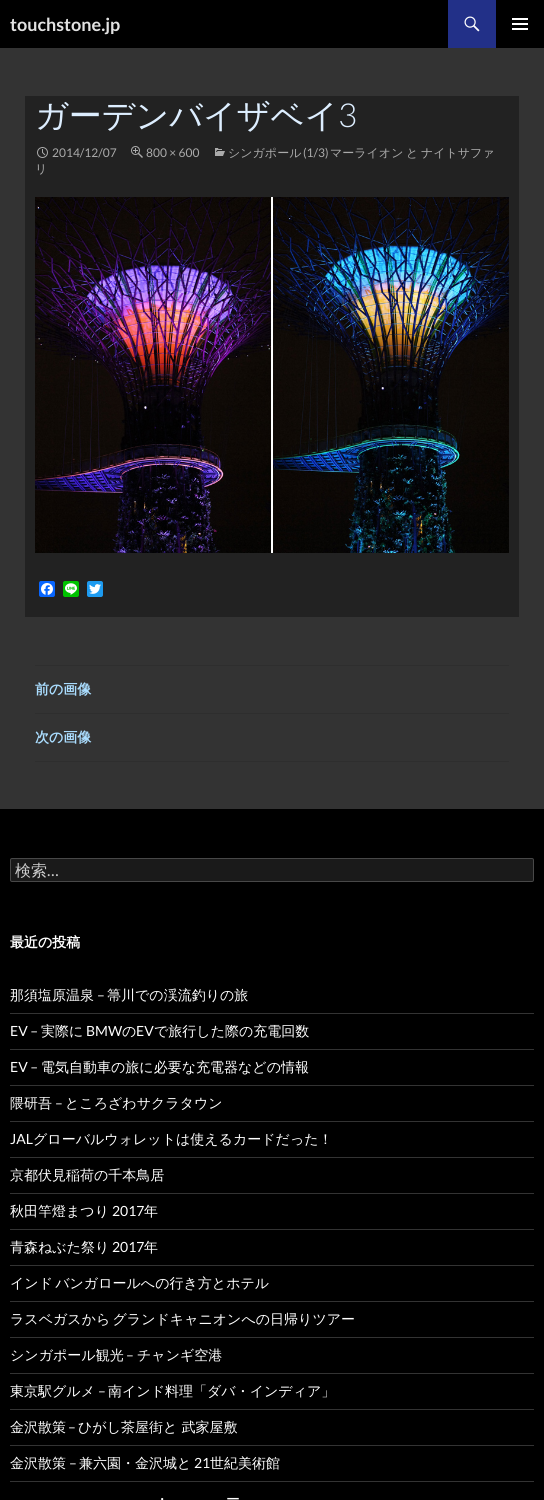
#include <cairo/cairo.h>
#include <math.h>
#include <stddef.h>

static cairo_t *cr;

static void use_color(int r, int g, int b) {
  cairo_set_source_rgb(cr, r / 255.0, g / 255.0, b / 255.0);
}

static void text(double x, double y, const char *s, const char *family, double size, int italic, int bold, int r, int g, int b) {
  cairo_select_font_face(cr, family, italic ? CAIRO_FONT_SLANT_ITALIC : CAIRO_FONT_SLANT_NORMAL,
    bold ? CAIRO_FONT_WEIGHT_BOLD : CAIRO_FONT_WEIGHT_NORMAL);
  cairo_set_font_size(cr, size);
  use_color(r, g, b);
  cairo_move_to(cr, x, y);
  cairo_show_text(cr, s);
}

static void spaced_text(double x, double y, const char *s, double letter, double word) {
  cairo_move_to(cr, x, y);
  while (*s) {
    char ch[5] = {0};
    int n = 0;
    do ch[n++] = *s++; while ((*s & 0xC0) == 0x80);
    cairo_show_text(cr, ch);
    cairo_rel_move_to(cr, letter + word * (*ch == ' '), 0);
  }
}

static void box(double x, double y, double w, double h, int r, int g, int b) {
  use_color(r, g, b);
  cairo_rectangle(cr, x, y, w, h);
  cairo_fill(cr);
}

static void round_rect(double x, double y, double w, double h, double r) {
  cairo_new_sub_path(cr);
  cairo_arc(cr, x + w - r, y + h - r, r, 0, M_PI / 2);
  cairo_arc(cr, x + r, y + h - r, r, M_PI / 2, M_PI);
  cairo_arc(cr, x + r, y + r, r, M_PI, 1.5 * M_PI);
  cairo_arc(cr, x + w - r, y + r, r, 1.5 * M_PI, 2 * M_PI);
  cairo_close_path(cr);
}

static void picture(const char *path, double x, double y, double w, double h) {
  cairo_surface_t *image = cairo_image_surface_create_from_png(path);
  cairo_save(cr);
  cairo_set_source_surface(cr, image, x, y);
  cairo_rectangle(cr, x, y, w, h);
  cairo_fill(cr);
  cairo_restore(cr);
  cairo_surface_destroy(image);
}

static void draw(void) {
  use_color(51, 51, 51);
  cairo_paint(cr);
  box(0, 0, 544, 48, 0, 0, 0);
  box(448, 0, 48, 48, 34, 48, 136);
  picture("img_01.png", 464, 16, 16, 16);
  picture("img_02.png", 512, 18, 16, 12);
  box(25, 96, 494, 521, 34, 34, 34);
  picture("img_03.png", 35, 197, 474, 356);
  use_color(8, 102, 255);
  round_rect(39, 581, 16, 16, 2);
  cairo_fill(cr);
  picture("img_04.png", 41, 583, 12, 12);
  use_color(0, 195, 0);
  round_rect(63, 581, 16, 16, 2);
  cairo_fill(cr);
  picture("img_05.png", 65, 583, 12, 12);
  use_color(29, 155, 240);
  round_rect(87, 581, 16, 16, 2);
  cairo_fill(cr);
  picture("img_06.png", 89, 584, 12, 10);
  picture("img_07.png", 215, 148, 10, 8);
  picture("img_08.png", 37, 147, 11, 11);
  picture("img_09.png", 131, 146, 12, 12);
  box(35, 665, 474, 1, 46, 46, 46);
  box(35, 713, 474, 1, 46, 46, 46);
  box(35, 761, 474, 1, 46, 46, 46);
  box(0, 809, 544, 691, 0, 0, 0);
  use_color(26, 26, 26);
  round_rect(10, 858, 524, 24, 2);
  cairo_fill(cr);
  round_rect(10.5, 858.5, 523, 23, 1.5);
  cairo_set_source_rgba(cr, 1, 1, 1, 0.2);
  cairo_set_line_width(cr, 1);
  cairo_stroke(cr);
  box(10, 1013, 524, 1, 51, 51, 51);
  box(10, 1049, 524, 1, 51, 51, 51);
  box(10, 1085, 524, 1, 51, 51, 51);
  box(10, 1121, 524, 1, 51, 51, 51);
  box(10, 1157, 524, 1, 51, 51, 51);
  box(10, 1193, 524, 1, 51, 51, 51);
  box(10, 1229, 524, 1, 51, 51, 51);
  box(10, 1265, 524, 1, 51, 51, 51);
  box(10, 1301, 524, 1, 51, 51, 51);
  box(10, 1337, 524, 1, 51, 51, 51);
  box(10, 1373, 524, 1, 51, 51, 51);
  box(10, 1409, 524, 1, 51, 51, 51);
  box(10, 1445, 524, 1, 51, 51, 51);
  box(10, 1481, 524, 1, 51, 51, 51);
  text(10, 31, "touchstone.jp", "Lato", 18, 0, 1, 226, 226, 226);
  text(35, 127, "ガーデンバイザベイ", "WenQuanYi Zen Hei Medium", 33, 0, 0, 221, 238, 255);
  text(338, 127, "3", "Lato Light", 33, 0, 0, 221, 238, 255);
  text(228, 157, "シンガポール", "WenQuanYi Zen Hei Medium", 12, 0, 0, 170, 170, 170);
  text(303, 157, "(1/3)", "Lato", 12, 0, 0, 170, 170, 170);
  cairo_select_font_face(cr, "WenQuanYi Zen Hei Medium", CAIRO_FONT_SLANT_NORMAL, CAIRO_FONT_WEIGHT_NORMAL);
  spaced_text(330, 157, "マーライオン と ナイトサファ", 0, -1);
  text(35, 173, "リ", "WenQuanYi Zen Hei Medium", 12, 0, 0, 170, 170, 170);
  text(52, 157, "2014/12/07", "Lato", 12, 0, 0, 170, 170, 170);
  text(146, 157, "800 × 600", "Lato", 12, 0, 0, 170, 170, 170);
  text(35, 694, "前の画像", "WenQuanYi Zen Hei", 14, 0, 1, 170, 221, 255);
  text(35, 742, "次の画像", "WenQuanYi Zen Hei", 14, 0, 1, 170, 221, 255);
  text(15, 876, "検索", "WenQuanYi Zen Hei Medium", 16, 0, 0, 204, 204, 204);
  text(47, 876, "…", "Lato", 16, 0, 0, 204, 204, 204);
  text(10, 947, "最近の投稿", "WenQuanYi Zen Hei", 14, 0, 1, 255, 255, 255);
  text(10, 1000, "那須塩原温泉", "WenQuanYi Zen Hei Medium", 14, 0, 0, 255, 255, 255);
  text(97, 1000, "–", "Lato", 14, 0, 0, 255, 255, 255);
  text(107, 1000, "箒川での渓流釣りの旅", "WenQuanYi Zen Hei Medium", 14, 0, 0, 255, 255, 255);
  text(10, 1036, "EV –", "Lato", 14, 0, 0, 255, 255, 255);
  text(41, 1036, "実際に", "WenQuanYi Zen Hei Medium", 14, 0, 0, 255, 255, 255);
  text(86, 1036, "BMW", "Lato", 14, 0, 0, 255, 255, 255);
  text(122, 1036, "の", "WenQuanYi Zen Hei Medium", 14, 0, 0, 255, 255, 255);
  text(136, 1036, "EV", "Lato", 14, 0, 0, 255, 255, 255);
  text(154, 1036, "で旅行した際の充電回数", "WenQuanYi Zen Hei Medium", 14, 0, 0, 255, 255, 255);
  text(10, 1072, "EV –", "Lato", 14, 0, 0, 255, 255, 255);
  text(41, 1072, "電気自動車の旅に必要な充電器などの情報", "WenQuanYi Zen Hei Medium", 14, 0, 0, 255, 255, 255);
  text(10, 1108, "隈研吾", "WenQuanYi Zen Hei Medium", 14, 0, 0, 255, 255, 255);
  text(55, 1108, "–", "Lato", 14, 0, 0, 255, 255, 255);
  text(65, 1108, "ところざわサクラタウン", "WenQuanYi Zen Hei Medium", 14, 0, 0, 255, 255, 255);
  text(10, 1144, "JAL", "Lato", 14, 0, 0, 255, 255, 255);
  text(33, 1144, "グローバルウォレットは使えるカードだった！", "WenQuanYi Zen Hei Medium", 14, 0, 0, 255, 255, 255);
  text(10, 1180, "京都伏見稲荷の千本鳥居", "WenQuanYi Zen Hei Medium", 14, 0, 0, 255, 255, 255);
  text(10, 1216, "秋田竿燈まつり", "WenQuanYi Zen Hei Medium", 14, 0, 0, 255, 255, 255);
  text(112, 1216, "2017", "Lato", 14, 0, 0, 255, 255, 255);
  text(144, 1216, "年", "WenQuanYi Zen Hei Medium", 14, 0, 0, 255, 255, 255);
  text(10, 1252, "青森ねぶた祭り", "WenQuanYi Zen Hei Medium", 14, 0, 0, 255, 255, 255);
  text(112, 1252, "2017", "Lato", 14, 0, 0, 255, 255, 255);
  text(144, 1252, "年", "WenQuanYi Zen Hei Medium", 14, 0, 0, 255, 255, 255);
  spaced_text(10, 1288, "インド バンガロールへの行き方とホテル", 0, -2);
  spaced_text(10, 1324, "ラスベガスから グランドキャニオンへの日帰りツアー", 0, -2);
  text(10, 1360, "シンガポール観光", "WenQuanYi Zen Hei Medium", 14, 0, 0, 255, 255, 255);
  text(126, 1360, "–", "Lato", 14, 0, 0, 255, 255, 255);
  text(137, 1360, "チャンギ空港", "WenQuanYi Zen Hei Medium", 14, 0, 0, 255, 255, 255);
  text(10, 1396, "東京駅グルメ", "WenQuanYi Zen Hei Medium", 14, 0, 0, 255, 255, 255);
  text(98, 1396, "–", "Lato", 14, 0, 0, 255, 255, 255);
  text(108, 1396, "南インド料理「ダバ・インディア」", "WenQuanYi Zen Hei Medium", 14, 0, 0, 255, 255, 255);
  text(10, 1432, "金沢散策", "WenQuanYi Zen Hei Medium", 14, 0, 0, 255, 255, 255);
  text(68, 1432, "–", "Lato", 14, 0, 0, 255, 255, 255);
  text(78, 1432, "ひがし茶屋街と 武家屋敷", "WenQuanYi Zen Hei Medium", 14, 0, 0, 255, 255, 255);
  text(10, 1468, "金沢散策", "WenQuanYi Zen Hei Medium", 14, 0, 0, 255, 255, 255);
  text(69, 1468, "–", "Lato", 14, 0, 0, 255, 255, 255);
  text(79, 1468, "兼六園・金沢城と", "WenQuanYi Zen Hei Medium", 14, 0, 0, 255, 255, 255);
  text(194, 1468, "21", "Lato", 14, 0, 0, 255, 255, 255);
  text(210, 1468, "世紀美術館", "WenQuanYi Zen Hei Medium", 14, 0, 0, 255, 255, 255);
  spaced_text(155, 1504, "・", 0, -2);
  spaced_text(226, 1504, "ー", 0, -2);
}

int main(void) {
  cairo_surface_t *surface = cairo_image_surface_create(CAIRO_FORMAT_RGB24, 544, 1500);
  cr = cairo_create(surface);
  cairo_font_options_t *options = cairo_font_options_create();
  cairo_font_options_set_hint_metrics(options, CAIRO_HINT_METRICS_OFF);
  cairo_font_options_set_hint_style(options, CAIRO_HINT_STYLE_NONE);
  cairo_set_font_options(cr, options);
  cairo_set_miter_limit(cr, 4);
  draw();
  cairo_surface_write_to_png(surface, "out.png");
  cairo_font_options_destroy(options);
  cairo_destroy(cr);
  cairo_surface_destroy(surface);
  return 0;
}
